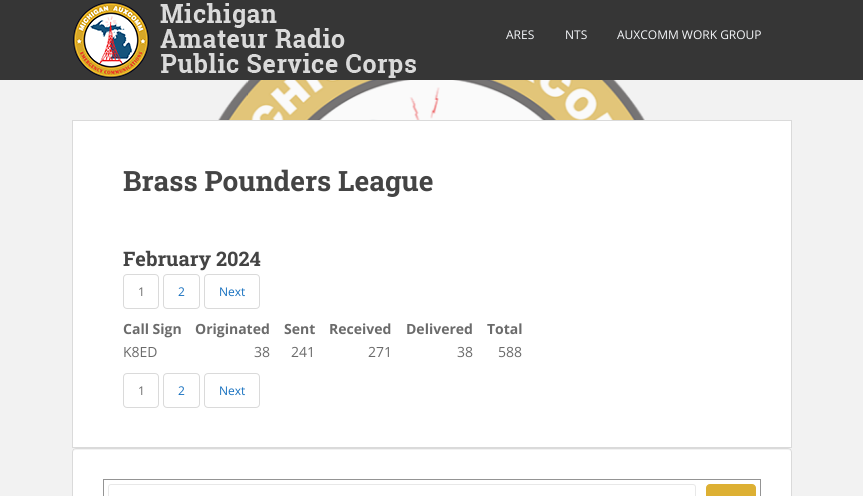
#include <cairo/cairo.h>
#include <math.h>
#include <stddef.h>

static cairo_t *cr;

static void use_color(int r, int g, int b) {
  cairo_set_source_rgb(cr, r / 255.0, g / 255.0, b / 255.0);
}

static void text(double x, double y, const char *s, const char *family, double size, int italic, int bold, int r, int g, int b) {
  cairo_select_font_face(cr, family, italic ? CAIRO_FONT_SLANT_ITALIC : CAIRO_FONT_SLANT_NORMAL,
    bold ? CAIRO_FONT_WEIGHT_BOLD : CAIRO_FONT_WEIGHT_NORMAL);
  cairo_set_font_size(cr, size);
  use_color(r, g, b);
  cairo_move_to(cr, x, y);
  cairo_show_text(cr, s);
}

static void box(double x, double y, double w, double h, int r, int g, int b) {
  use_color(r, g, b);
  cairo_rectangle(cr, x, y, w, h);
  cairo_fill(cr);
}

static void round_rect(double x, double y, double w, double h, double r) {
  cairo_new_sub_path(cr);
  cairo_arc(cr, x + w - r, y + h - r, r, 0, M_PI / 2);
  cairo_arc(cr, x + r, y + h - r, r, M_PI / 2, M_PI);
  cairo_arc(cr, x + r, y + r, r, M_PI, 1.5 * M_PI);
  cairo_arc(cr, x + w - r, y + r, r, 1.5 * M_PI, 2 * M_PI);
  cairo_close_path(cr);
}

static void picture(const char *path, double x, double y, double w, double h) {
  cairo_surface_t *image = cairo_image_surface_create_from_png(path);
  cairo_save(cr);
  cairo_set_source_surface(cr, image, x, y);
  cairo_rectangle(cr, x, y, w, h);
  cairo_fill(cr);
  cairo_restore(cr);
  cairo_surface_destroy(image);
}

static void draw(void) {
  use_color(242, 242, 242);
  cairo_paint(cr);
  picture("img_01.png", 218, 80, 427, 40);
  box(0, 0, 863, 80, 54, 54, 54);
  picture("img_02.png", 73, 2, 343, 76);
  use_color(255, 255, 255);
  cairo_rectangle(cr, 72.5, 120.5, 719, 327);
  cairo_fill_preserve(cr);
  use_color(218, 218, 218);
  cairo_set_line_width(cr, 1);
  cairo_stroke(cr);
  round_rect(123.5, 274.5, 35, 34, 3.5);
  cairo_stroke(cr);
  round_rect(163.5, 274.5, 36, 34, 3.5);
  cairo_stroke(cr);
  round_rect(204.5, 274.5, 55, 34, 3.5);
  cairo_stroke(cr);
  round_rect(123.5, 373.5, 35, 34, 3.5);
  cairo_stroke(cr);
  round_rect(163.5, 373.5, 36, 34, 3.5);
  cairo_stroke(cr);
  round_rect(204.5, 373.5, 55, 34, 3.5);
  cairo_stroke(cr);
  use_color(255, 255, 255);
  round_rect(72, 448, 720, 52, 4);
  cairo_fill(cr);
  use_color(242, 242, 242);
  cairo_new_path(cr);
  cairo_move_to(cr, 76, 450);
  cairo_line_to(cr, 788, 450);
  cairo_curve_to(cr, 790, 450, 791, 451, 791, 453);
  cairo_curve_to(cr, 791, 451, 790, 449, 788, 449);
  cairo_line_to(cr, 76, 449);
  cairo_curve_to(cr, 74, 449, 73, 451, 73, 453);
  cairo_curve_to(cr, 73, 451, 74, 450, 76, 450);
  cairo_close_path(cr);
  cairo_fill(cr);
  round_rect(72.5, 448.5, 719, 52, 3.5);
  use_color(218, 218, 218);
  cairo_stroke(cr);
  cairo_rectangle(cr, 103.5, 479.5, 657, 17);
  use_color(148, 148, 148);
  cairo_stroke(cr);
  round_rect(108.5, 484.5, 587, 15, 2.5);
  use_color(232, 232, 232);
  cairo_stroke(cr);
  use_color(221, 176, 51);
  round_rect(706.5, 484.5, 49, 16, 3.5);
  cairo_fill_preserve(cr);
  cairo_stroke(cr);
  text(506, 39, "ARES", "Open Sans", 12, 0, 0, 245, 247, 250);
  text(565, 39, "NTS", "Open Sans", 12, 0, 0, 245, 247, 250);
  text(617, 39, "AUXCOMM WORK GROUP", "Open Sans", 12, 0, 0, 245, 247, 250);
  text(123, 191, "Brass Pounders League", "Roboto Slab", 28, 0, 1, 68, 68, 68);
  text(123, 266, "February 2024", "Roboto Slab", 20, 0, 1, 68, 68, 68);
  text(138, 296, "1", "Open Sans", 12, 0, 0, 107, 107, 107);
  text(178, 296, "2", "Open Sans", 12, 0, 0, 22, 112, 191);
  text(219, 296, "Next", "Open Sans", 12, 0, 0, 22, 112, 191);
  text(123, 334, "Call Sign", "Open Sans", 14, 0, 1, 107, 107, 107);
  text(195, 334, "Originated", "Open Sans", 14, 0, 1, 107, 107, 107);
  text(284, 334, "Sent", "Open Sans", 14, 0, 1, 107, 107, 107);
  text(329, 334, "Received", "Open Sans", 14, 0, 1, 107, 107, 107);
  text(406, 334, "Delivered", "Open Sans", 14, 0, 1, 107, 107, 107);
  text(487, 334, "Total", "Open Sans", 14, 0, 1, 107, 107, 107);
  text(123, 357, "K8ED", "Open Sans", 14, 0, 0, 107, 107, 107);
  text(254, 357, "38", "Open Sans", 14, 0, 0, 107, 107, 107);
  text(291, 357, "241", "Open Sans", 14, 0, 0, 107, 107, 107);
  text(368, 357, "271", "Open Sans", 14, 0, 0, 107, 107, 107);
  text(457, 357, "38", "Open Sans", 14, 0, 0, 107, 107, 107);
  text(498, 357, "588", "Open Sans", 14, 0, 0, 107, 107, 107);
  text(138, 395, "1", "Open Sans", 12, 0, 0, 107, 107, 107);
  text(178, 395, "2", "Open Sans", 12, 0, 0, 22, 112, 191);
  text(219, 395, "Next", "Open Sans", 12, 0, 0, 22, 112, 191);
}

int main(void) {
  cairo_surface_t *surface = cairo_image_surface_create(CAIRO_FORMAT_RGB24, 863, 496);
  cr = cairo_create(surface);
  cairo_font_options_t *options = cairo_font_options_create();
  cairo_font_options_set_hint_metrics(options, CAIRO_HINT_METRICS_OFF);
  cairo_font_options_set_hint_style(options, CAIRO_HINT_STYLE_NONE);
  cairo_set_font_options(cr, options);
  cairo_set_miter_limit(cr, 4);
  draw();
  cairo_surface_write_to_png(surface, "out.png");
  cairo_font_options_destroy(options);
  cairo_destroy(cr);
  cairo_surface_destroy(surface);
  return 0;
}
